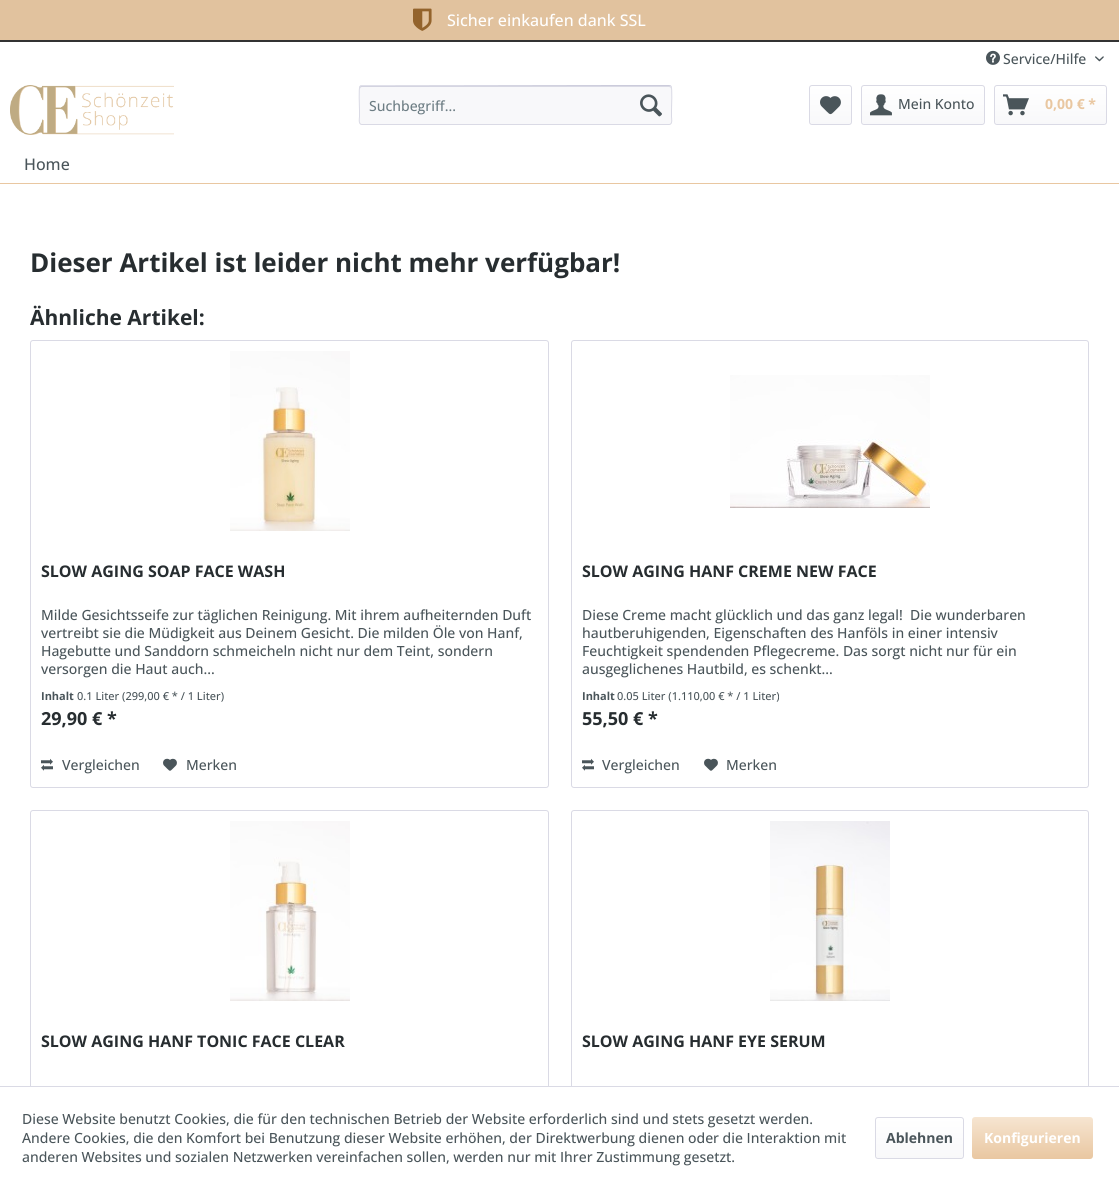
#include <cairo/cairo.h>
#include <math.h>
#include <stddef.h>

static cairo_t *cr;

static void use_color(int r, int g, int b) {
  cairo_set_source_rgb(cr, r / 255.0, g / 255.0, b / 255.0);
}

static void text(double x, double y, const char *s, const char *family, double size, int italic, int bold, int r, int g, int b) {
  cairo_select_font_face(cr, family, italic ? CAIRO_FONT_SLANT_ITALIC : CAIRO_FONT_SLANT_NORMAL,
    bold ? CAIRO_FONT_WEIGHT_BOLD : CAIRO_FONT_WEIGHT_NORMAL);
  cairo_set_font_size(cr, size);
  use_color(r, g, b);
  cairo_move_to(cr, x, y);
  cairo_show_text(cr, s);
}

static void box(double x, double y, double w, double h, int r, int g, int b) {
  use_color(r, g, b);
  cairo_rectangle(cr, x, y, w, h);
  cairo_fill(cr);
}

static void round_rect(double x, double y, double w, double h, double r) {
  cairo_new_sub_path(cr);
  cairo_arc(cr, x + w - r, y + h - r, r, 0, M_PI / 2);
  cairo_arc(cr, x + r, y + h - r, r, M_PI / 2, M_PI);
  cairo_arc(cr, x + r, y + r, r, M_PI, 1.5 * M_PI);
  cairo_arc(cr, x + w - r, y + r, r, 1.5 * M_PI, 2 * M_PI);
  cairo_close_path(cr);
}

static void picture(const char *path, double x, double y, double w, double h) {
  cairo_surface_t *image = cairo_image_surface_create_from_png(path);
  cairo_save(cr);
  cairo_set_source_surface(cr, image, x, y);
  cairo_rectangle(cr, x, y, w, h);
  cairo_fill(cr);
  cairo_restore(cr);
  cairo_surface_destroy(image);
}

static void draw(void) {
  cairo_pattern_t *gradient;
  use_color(255, 255, 255);
  cairo_paint(cr);
  box(0, 0, 1119, 40, 225, 194, 158);
  box(0, 40, 1119, 2, 51, 51, 51);
  picture("img_01.png", 413, 8, 19, 23);
  picture("img_02.png", 986, 50, 14, 15);
  picture("img_03.png", 1095, 56, 9, 6);
  picture("img_04.png", 10, 85, 164, 50);
  use_color(248, 248, 250);
  round_rect(359, 85, 313, 40, 3);
  cairo_fill(cr);
  use_color(218, 218, 229);
  cairo_new_path(cr);
  cairo_move_to(cr, 362, 87);
  cairo_line_to(cr, 669, 87);
  cairo_curve_to(cr, 670, 87, 671, 88, 671, 89);
  cairo_curve_to(cr, 671, 88, 671, 86, 669, 86);
  cairo_line_to(cr, 361, 86);
  cairo_line_to(cr, 360, 87);
  cairo_line_to(cr, 360, 89);
  cairo_curve_to(cr, 360, 88, 361, 87, 362, 87);
  cairo_close_path(cr);
  cairo_fill(cr);
  cairo_new_path(cr);
  cairo_move_to(cr, 360, 86);
  cairo_line_to(cr, 361, 86);
  cairo_line_to(cr, 618, 85.5);
  cairo_line_to(cr, 669, 85.5);
  cairo_line_to(cr, 671, 86);
  use_color(203, 203, 219);
  cairo_set_line_width(cr, 1);
  cairo_stroke(cr);
  cairo_new_path(cr);
  cairo_move_to(cr, 671, 86);
  cairo_curve_to(cr, 672.5, 88, 671.5, 107, 671.5, 110.5);
  cairo_line_to(cr, 671.5, 116.5);
  cairo_curve_to(cr, 671.5, 118, 673, 124.5, 669, 124.5);
  cairo_line_to(cr, 362, 124.5);
  cairo_curve_to(cr, 358, 124.5, 359.5, 118, 359.5, 116.5);
  cairo_line_to(cr, 359.5, 110.5);
  cairo_curve_to(cr, 359.5, 107, 358.5, 88, 360, 86);
  use_color(218, 218, 229);
  cairo_stroke(cr);
  picture("img_05.png", 640, 94, 22, 23);
  gradient = cairo_pattern_create_linear(831, 86, 831, 124);
  cairo_pattern_add_color_stop_rgba(gradient, 0, 1, 1, 1, 1);
  cairo_pattern_add_color_stop_rgba(gradient, 1, 0.973, 0.973, 0.98, 1);
  cairo_set_source(cr, gradient);
  cairo_pattern_destroy(gradient);
  round_rect(810, 86, 41, 38, 2);
  cairo_fill(cr);
  round_rect(809.5, 85.5, 42, 39, 2.5);
  use_color(218, 218, 229);
  cairo_stroke(cr);
  picture("img_06.png", 820, 96, 21, 19);
  gradient = cairo_pattern_create_linear(923, 86, 923, 124);
  cairo_pattern_add_color_stop_rgba(gradient, 0, 1, 1, 1, 1);
  cairo_pattern_add_color_stop_rgba(gradient, 1, 0.973, 0.973, 0.98, 1);
  cairo_set_source(cr, gradient);
  cairo_pattern_destroy(gradient);
  round_rect(862, 86, 122, 38, 2);
  cairo_fill(cr);
  round_rect(861.5, 85.5, 123, 39, 2.5);
  use_color(218, 218, 229);
  cairo_stroke(cr);
  picture("img_07.png", 870, 94, 22, 22);
  gradient = cairo_pattern_create_linear(1051, 86, 1051, 124);
  cairo_pattern_add_color_stop_rgba(gradient, 0, 1, 1, 1, 1);
  cairo_pattern_add_color_stop_rgba(gradient, 1, 0.973, 0.973, 0.98, 1);
  cairo_set_source(cr, gradient);
  cairo_pattern_destroy(gradient);
  round_rect(995, 86, 111, 38, 2);
  cairo_fill(cr);
  round_rect(994.5, 85.5, 112, 39, 2.5);
  use_color(218, 218, 229);
  cairo_stroke(cr);
  picture("img_08.png", 1003, 94, 26, 22);
  box(0, 183, 1119, 1, 233, 199, 161);
  round_rect(30.5, 340.5, 518, 447, 2.5);
  use_color(218, 218, 229);
  cairo_stroke(cr);
  picture("img_09.png", 230, 351, 120, 180);
  picture("img_10.png", 41, 758, 12, 13);
  picture("img_11.png", 163, 758, 14, 13);
  round_rect(571.5, 340.5, 517, 447, 2.5);
  cairo_stroke(cr);
  picture("img_12.png", 730, 375, 200, 133);
  picture("img_10.png", 582, 758, 12, 13);
  picture("img_11.png", 704, 758, 14, 13);
  round_rect(30.5, 810.5, 518, 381, 2.5);
  cairo_stroke(cr);
  picture("img_13.png", 230, 821, 120, 180);
  round_rect(571.5, 810.5, 517, 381, 2.5);
  cairo_stroke(cr);
  picture("img_14.png", 770, 821, 120, 180);
  box(30, 1087, 1059, 101, 255, 255, 255);
  box(0, 1086, 1119, 1, 218, 218, 229);
  gradient = cairo_pattern_create_linear(920, 1118, 920, 1158);
  cairo_pattern_add_color_stop_rgba(gradient, 0, 1, 1, 1, 1);
  cairo_pattern_add_color_stop_rgba(gradient, 1, 0.973, 0.973, 0.98, 1);
  cairo_set_source(cr, gradient);
  cairo_pattern_destroy(gradient);
  round_rect(876, 1118, 87, 40, 2);
  cairo_fill(cr);
  round_rect(875.5, 1117.5, 88, 41, 2.5);
  use_color(218, 218, 229);
  cairo_stroke(cr);
  gradient = cairo_pattern_create_linear(1033, 1117, 1033, 1159);
  cairo_pattern_add_color_stop_rgba(gradient, 0, 0.965, 0.898, 0.82, 1);
  cairo_pattern_add_color_stop_rgba(gradient, 1, 0.914, 0.78, 0.631, 1);
  cairo_set_source(cr, gradient);
  cairo_pattern_destroy(gradient);
  round_rect(972, 1117, 121, 42, 3);
  cairo_fill(cr);
  text(447, 26, "Sicher einkaufen dank SSL", "Open Sans Medium", 16, 0, 0, 255, 255, 255);
  text(1003, 64, "Service/Hilfe", "Open Sans Medium", 14, 0, 0, 74, 85, 90);
  text(369, 111, "Suchbegriff...", "Open Sans Medium", 14, 0, 0, 109, 125, 132);
  text(898, 109, "Mein Konto", "Open Sans Medium", 14, 0, 0, 74, 85, 90);
  text(1045, 109, "0,00 € *", "Open Sans", 14, 0, 1, 233, 199, 161);
  text(24, 170, "Home", "Open Sans Medium", 16, 0, 0, 74, 85, 90);
  text(30, 272, "Dieser Artikel ist leider nicht mehr verfügbar!", "Open Sans", 26, 0, 1, 39, 45, 48);
  text(30, 325, "Ähnliche Artikel:", "Open Sans", 21, 0, 1, 39, 45, 48);
  text(41, 577, "SLOW AGING SOAP FACE WASH", "Open Sans", 16, 0, 1, 39, 45, 48);
  text(41, 620, "Milde Gesichtsseife zur täglichen Reinigung. Mit ihrem aufheiternden Duft", "Open Sans Medium", 14, 0, 0, 74, 85, 90);
  text(41, 638, "vertreibt sie die Müdigkeit aus Deinem Gesicht. Die milden Öle von Hanf,", "Open Sans Medium", 14, 0, 0, 74, 85, 90);
  text(41, 656, "Hagebutte und Sanddorn schmeicheln nicht nur dem Teint, sondern", "Open Sans Medium", 14, 0, 0, 74, 85, 90);
  text(41, 674, "versorgen die Haut auch...", "Open Sans Medium", 14, 0, 0, 74, 85, 90);
  text(41, 700, "Inhalt", "Open Sans", 11, 0, 1, 74, 85, 90);
  text(77, 700, "0.1 Liter (299,00 € * / 1 Liter)", "Open Sans Medium", 11, 0, 0, 74, 85, 90);
  text(41, 725, "29,90 € *", "Open Sans", 18, 0, 1, 39, 45, 48);
  text(62, 770, "Vergleichen", "Open Sans Medium", 14, 0, 0, 74, 85, 90);
  text(186, 770, "Merken", "Open Sans Medium", 14, 0, 0, 74, 85, 90);
  text(582, 577, "SLOW AGING HANF CREME NEW FACE", "Open Sans", 16, 0, 1, 39, 45, 48);
  text(582, 620, "Diese Creme macht glücklich und das ganz legal!  Die wunderbaren", "Open Sans Medium", 14, 0, 0, 74, 85, 90);
  text(582, 638, "hautberuhigenden, Eigenschaften des Hanföls in einer intensiv", "Open Sans Medium", 14, 0, 0, 74, 85, 90);
  text(582, 656, "Feuchtigkeit spendenden Pflegecreme. Das sorgt nicht nur für ein", "Open Sans Medium", 14, 0, 0, 74, 85, 90);
  text(582, 674, "ausgeglichenes Hautbild, es schenkt...", "Open Sans Medium", 14, 0, 0, 74, 85, 90);
  text(582, 700, "Inhalt", "Open Sans", 11, 0, 1, 74, 85, 90);
  text(617, 700, "0.05 Liter (1.110,00 € * / 1 Liter)", "Open Sans Medium", 11, 0, 0, 74, 85, 90);
  text(582, 725, "55,50 € *", "Open Sans", 18, 0, 1, 39, 45, 48);
  text(602, 770, "Vergleichen", "Open Sans Medium", 14, 0, 0, 74, 85, 90);
  text(726, 770, "Merken", "Open Sans Medium", 14, 0, 0, 74, 85, 90);
  text(41, 1047, "SLOW AGING HANF TONIC FACE CLEAR", "Open Sans", 16, 0, 1, 39, 45, 48);
  text(582, 1047, "SLOW AGING HANF EYE SERUM", "Open Sans", 16, 0, 1, 39, 45, 48);
  text(22, 1124, "Diese Website benutzt Cookies, die für den technischen Betrieb der Website erforderlich sind und stets gesetzt werden.", "Open Sans Medium", 14, 0, 0, 74, 85, 90);
  text(22, 1143, "Andere Cookies, die den Komfort bei Benutzung dieser Website erhöhen, der Direktwerbung dienen oder die Interaktion mit", "Open Sans Medium", 14, 0, 0, 74, 85, 90);
  text(22, 1162, "anderen Websites und sozialen Netzwerken vereinfachen sollen, werden nur mit Ihrer Zustimmung gesetzt.", "Open Sans Medium", 14, 0, 0, 74, 85, 90);
  text(886, 1143, "Ablehnen", "Open Sans", 14, 0, 1, 74, 85, 90);
  text(984, 1143, "Konfigurieren", "Open Sans", 14, 0, 1, 255, 255, 255);
}

int main(void) {
  cairo_surface_t *surface = cairo_image_surface_create(CAIRO_FORMAT_RGB24, 1119, 1188);
  cr = cairo_create(surface);
  cairo_font_options_t *options = cairo_font_options_create();
  cairo_font_options_set_hint_metrics(options, CAIRO_HINT_METRICS_OFF);
  cairo_font_options_set_hint_style(options, CAIRO_HINT_STYLE_NONE);
  cairo_set_font_options(cr, options);
  cairo_set_miter_limit(cr, 4);
  draw();
  cairo_surface_write_to_png(surface, "out.png");
  cairo_font_options_destroy(options);
  cairo_destroy(cr);
  cairo_surface_destroy(surface);
  return 0;
}
